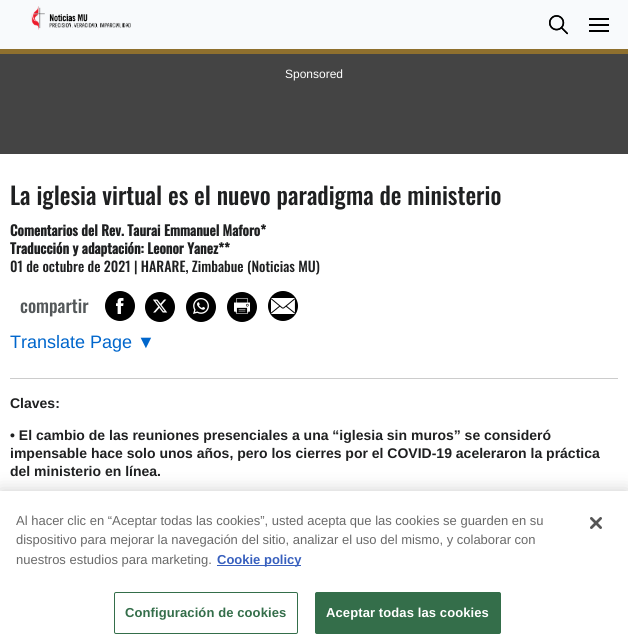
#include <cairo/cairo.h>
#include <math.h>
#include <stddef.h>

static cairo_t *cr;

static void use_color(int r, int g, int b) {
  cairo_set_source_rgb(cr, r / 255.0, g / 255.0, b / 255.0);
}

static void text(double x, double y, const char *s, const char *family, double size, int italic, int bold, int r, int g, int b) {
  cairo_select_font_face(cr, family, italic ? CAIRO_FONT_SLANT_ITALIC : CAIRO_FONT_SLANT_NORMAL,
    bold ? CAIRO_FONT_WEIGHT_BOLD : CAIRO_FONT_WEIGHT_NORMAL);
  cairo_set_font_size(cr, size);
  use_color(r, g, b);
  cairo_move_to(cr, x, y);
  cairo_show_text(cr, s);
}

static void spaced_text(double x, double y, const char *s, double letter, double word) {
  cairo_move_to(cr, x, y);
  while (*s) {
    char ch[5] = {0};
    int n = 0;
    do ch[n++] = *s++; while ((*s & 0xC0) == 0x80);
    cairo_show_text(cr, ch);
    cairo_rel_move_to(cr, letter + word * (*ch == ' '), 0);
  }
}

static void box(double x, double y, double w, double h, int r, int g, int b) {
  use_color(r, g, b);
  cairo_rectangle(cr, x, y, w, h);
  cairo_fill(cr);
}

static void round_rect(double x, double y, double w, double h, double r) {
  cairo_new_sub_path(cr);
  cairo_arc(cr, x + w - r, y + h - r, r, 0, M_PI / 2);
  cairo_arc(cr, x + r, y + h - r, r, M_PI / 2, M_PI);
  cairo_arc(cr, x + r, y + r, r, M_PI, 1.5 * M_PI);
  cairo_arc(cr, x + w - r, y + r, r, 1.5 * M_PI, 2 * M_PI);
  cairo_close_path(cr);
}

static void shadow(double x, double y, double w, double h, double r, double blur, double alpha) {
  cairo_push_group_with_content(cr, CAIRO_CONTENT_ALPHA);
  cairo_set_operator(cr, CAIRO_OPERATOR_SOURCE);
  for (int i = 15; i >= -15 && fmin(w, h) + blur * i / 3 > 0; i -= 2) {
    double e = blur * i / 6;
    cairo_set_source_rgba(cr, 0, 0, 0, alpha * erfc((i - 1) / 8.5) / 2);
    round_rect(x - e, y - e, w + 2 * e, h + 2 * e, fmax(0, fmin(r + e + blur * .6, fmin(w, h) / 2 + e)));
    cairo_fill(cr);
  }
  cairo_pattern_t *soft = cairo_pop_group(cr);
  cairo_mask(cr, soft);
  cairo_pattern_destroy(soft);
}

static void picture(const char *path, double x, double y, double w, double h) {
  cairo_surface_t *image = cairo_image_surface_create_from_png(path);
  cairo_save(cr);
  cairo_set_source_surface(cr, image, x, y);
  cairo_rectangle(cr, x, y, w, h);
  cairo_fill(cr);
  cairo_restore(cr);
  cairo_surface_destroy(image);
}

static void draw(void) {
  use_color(255, 255, 255);
  cairo_paint(cr);
  box(0, 0, 628, 49, 248, 250, 252);
  box(0, 49, 628, 5, 143, 112, 46);
  picture("img_01.png", 31, 6, 100, 24);
  picture("img_02.png", 549, 15, 19, 20);
  picture("img_03.png", 549, 15, 19, 20);
  box(589, 24, 20, 2, 0, 0, 0);
  box(589, 18, 20, 2, 0, 0, 0);
  box(589, 30, 20, 2, 0, 0, 0);
  box(0, 54, 628, 100, 68, 68, 68);
  use_color(0, 0, 0);
  cairo_arc(cr, 120, 306, 15, 0, 2 * M_PI);
  cairo_fill(cr);
  picture("img_04.png", 116, 298, 8, 16);
  cairo_arc(cr, 160, 307, 15, 0, 2 * M_PI);
  cairo_fill(cr);
  picture("img_05.png", 153, 299, 15, 14);
  cairo_arc(cr, 201, 307, 15, 0, 2 * M_PI);
  cairo_fill(cr);
  picture("img_06.png", 193, 298, 16, 16);
  cairo_arc(cr, 242, 307, 15, 0, 2 * M_PI);
  cairo_fill(cr);
  picture("img_07.png", 234, 298, 16, 16);
  cairo_arc(cr, 283, 306, 15, 0, 2 * M_PI);
  cairo_fill(cr);
  picture("img_08.png", 271, 298, 24, 16);
  box(10, 378, 608, 1, 204, 204, 204);
  use_color(0, 0, 0);
  shadow(0, 491, 628, 153, 0, 9, 0.2);
  box(0, 491, 628, 153, 255, 255, 255);
  box(217, 565, 84, 1, 56, 96, 190);
  round_rect(114.5, 592.5, 183, 41, 1.5);
  use_color(52, 110, 74);
  cairo_set_line_width(cr, 1);
  cairo_stroke(cr);
  round_rect(315.5, 592.5, 185, 41, 1.5);
  cairo_fill_preserve(cr);
  cairo_stroke(cr);
  picture("img_09.png", 590, 517, 12, 12);
  text(285, 78, "Sponsored", "Liberation Sans", 12, 0, 0, 255, 255, 255);
  text(10, 205, "La iglesia virtual es el nuevo paradigma de ministerio", "Oswald Medium", 24, 0, 0, 31, 32, 33);
  text(10, 236, "Comentarios del Rev. Taurai Emmanuel Maforo*", "Oswald", 14, 0, 1, 31, 32, 33);
  text(10, 254, "Traducción y adaptación: Leonor Yanez**", "Oswald", 14, 0, 1, 31, 32, 33);
  text(10, 272, "01 de octubre de 2021 | HARARE, Zimbabue (Noticias MU)", "Oswald Medium", 14, 0, 0, 31, 32, 33);
  text(20, 313, "compartir", "Oswald Medium", 18, 0, 0, 84, 88, 90);
  text(10, 348, "Translate Page ▼", "Liberation Sans", 18, 0, 0, 0, 102, 204);
  text(10, 408, "Claves:", "Liberation Sans", 14, 0, 1, 31, 32, 33);
  text(10, 440, "• El cambio de las reuniones presenciales a una “iglesia sin muros” se consideró", "Liberation Sans", 14, 0, 1, 31, 32, 33);
  text(10, 458, "impensable hace solo unos años, pero los cierres por el COVID-19 aceleraron la práctica", "Liberation Sans", 14, 0, 1, 31, 32, 33);
  text(10, 476, "del ministerio en línea.", "Liberation Sans", 14, 0, 1, 31, 32, 33);
  text(16, 525, "Al hacer clic en “Aceptar todas las cookies”, usted acepta que las cookies se guarden en su", "Liberation Sans", 13, 0, 0, 105, 105, 105);
  text(16, 544, "dispositivo para mejorar la navegación del sitio, analizar el uso del mismo, y colaborar con", "Liberation Sans", 13, 0, 0, 105, 105, 105);
  text(16, 564, "nuestros estudios para marketing.", "Liberation Sans", 13, 0, 0, 105, 105, 105);
  text(217, 564, "Cookie policy", "Liberation Sans", 13, 0, 1, 56, 96, 190);
  use_color(52, 110, 74);
  spaced_text(125, 617, "Configuración de cookies", 0.1, 0);
  use_color(255, 255, 255);
  spaced_text(326, 617, "Aceptar todas las cookies", 0.1, 0);
}

int main(void) {
  cairo_surface_t *surface = cairo_image_surface_create(CAIRO_FORMAT_RGB24, 628, 644);
  cr = cairo_create(surface);
  cairo_font_options_t *options = cairo_font_options_create();
  cairo_font_options_set_hint_metrics(options, CAIRO_HINT_METRICS_OFF);
  cairo_font_options_set_hint_style(options, CAIRO_HINT_STYLE_NONE);
  cairo_set_font_options(cr, options);
  cairo_set_miter_limit(cr, 4);
  draw();
  cairo_surface_write_to_png(surface, "out.png");
  cairo_font_options_destroy(options);
  cairo_destroy(cr);
  cairo_surface_destroy(surface);
  return 0;
}
